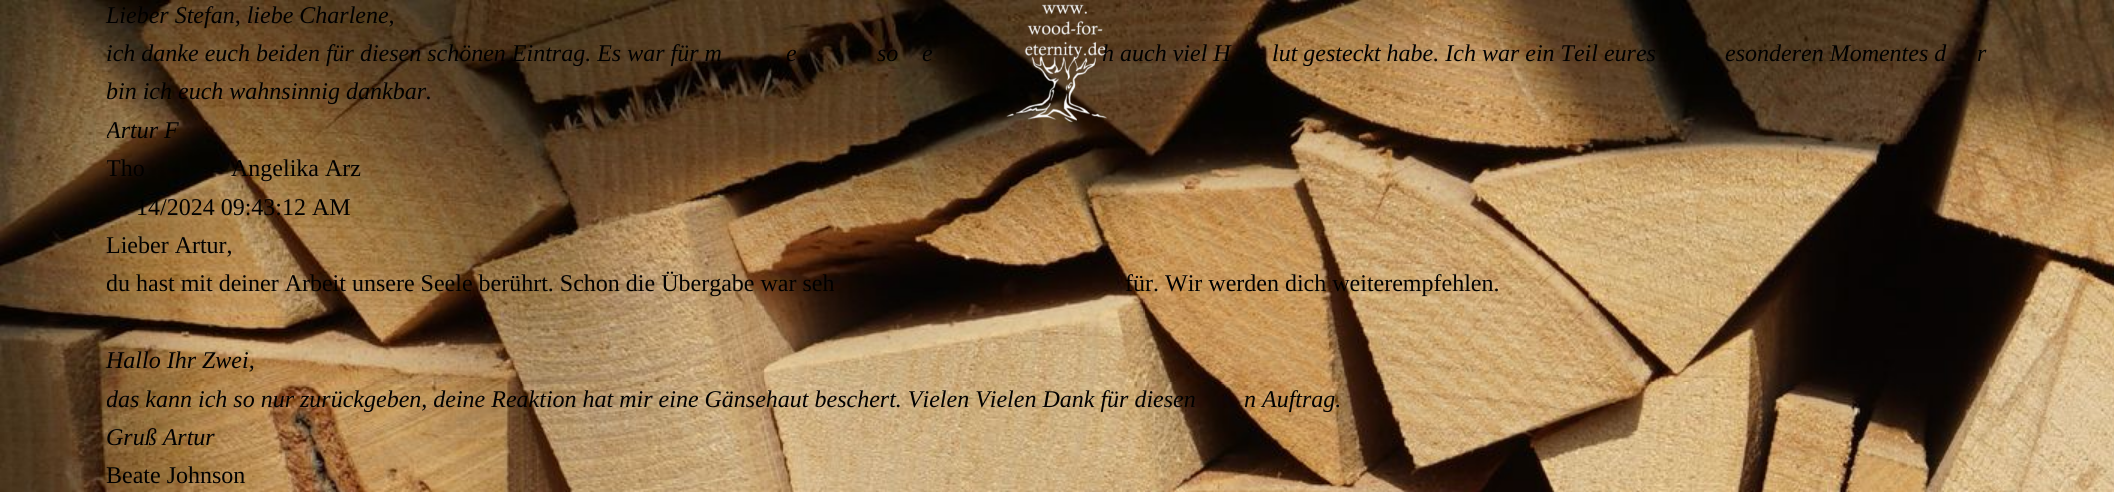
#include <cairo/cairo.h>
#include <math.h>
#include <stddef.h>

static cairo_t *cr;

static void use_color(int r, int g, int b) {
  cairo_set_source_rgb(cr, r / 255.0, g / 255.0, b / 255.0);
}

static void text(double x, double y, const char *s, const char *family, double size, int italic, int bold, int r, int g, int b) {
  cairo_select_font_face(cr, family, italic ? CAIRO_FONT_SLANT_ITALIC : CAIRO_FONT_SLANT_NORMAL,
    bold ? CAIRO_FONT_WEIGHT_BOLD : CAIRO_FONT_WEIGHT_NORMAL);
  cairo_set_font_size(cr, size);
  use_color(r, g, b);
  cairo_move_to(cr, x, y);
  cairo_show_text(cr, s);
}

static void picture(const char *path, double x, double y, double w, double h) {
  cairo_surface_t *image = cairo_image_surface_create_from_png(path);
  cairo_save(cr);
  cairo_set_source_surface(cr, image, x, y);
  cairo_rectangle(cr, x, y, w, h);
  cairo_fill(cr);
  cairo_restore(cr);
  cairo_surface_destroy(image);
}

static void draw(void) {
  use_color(255, 255, 255);
  cairo_paint(cr);
  picture("img_01.png", 0, 0, 2114, 492);
  text(106, 23, "Lieber Stefan, liebe Charlene,", "Liberation Serif", 24, 1, 0, 0, 0, 0);
  text(106, 61, "ich danke euch beiden für diesen schönen Eintrag. Es war für m", "Liberation Serif", 24, 1, 0, 0, 0, 0);
  text(786, 61, "e", "Liberation Serif", 24, 1, 0, 0, 0, 0);
  text(877, 61, "so", "Liberation Serif", 24, 1, 0, 0, 0, 0);
  text(922, 61, "e", "Liberation Serif", 24, 1, 0, 0, 0, 0);
  text(1102, 61, "h auch viel H", "Liberation Serif", 24, 1, 0, 0, 0, 0);
  picture("img_02.png", 1006, 4, 102, 119);
  text(1272, 61, "lut gesteckt habe. Ich war ein Teil eures", "Liberation Serif", 24, 1, 0, 0, 0, 0);
  text(1725, 61, "esonderen Momentes d", "Liberation Serif", 24, 1, 0, 0, 0, 0);
  text(1977, 61, "r", "Liberation Serif", 24, 1, 0, 0, 0, 0);
  text(106, 99, "bin ich euch wahnsinnig dankbar.", "Liberation Serif", 24, 1, 0, 0, 0, 0);
  cairo_save(cr);
  cairo_rectangle(cr, 107, 0, 1903, 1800);
  cairo_clip(cr);
  text(106, 138, "Artur F", "Liberation Serif", 24, 1, 0, 0, 0, 0);
  text(106, 176, "Tho", "Liberation Serif", 24, 0, 0, 0, 0, 0);
  cairo_restore(cr);
  text(231, 176, "Angelika Arz", "Liberation Serif", 24, 0, 0, 0, 0, 0);
  text(136, 215, "14/2024 09:43:12 AM", "Liberation Serif", 24, 0, 0, 0, 0, 0);
  text(106, 253, "Lieber Artur,", "Liberation Serif", 24, 0, 0, 0, 0, 0);
  cairo_save(cr);
  cairo_rectangle(cr, 107, 0, 1903, 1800);
  cairo_clip(cr);
  text(106, 291, "du hast mit deiner Arbeit unsere Seele berührt. Schon die Übergabe war seh", "Liberation Serif", 24, 0, 0, 0, 0, 0);
  cairo_restore(cr);
  text(1125, 291, "für. Wir werden dich weiterempfehlen.", "Liberation Serif", 24, 0, 0, 0, 0, 0);
  text(106, 368, "Hallo Ihr Zwei,", "Liberation Serif", 24, 1, 0, 0, 0, 0);
  cairo_save(cr);
  cairo_rectangle(cr, 107, 0, 1903, 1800);
  cairo_clip(cr);
  text(106, 407, "das kann ich so nur zurückgeben, deine Reaktion hat mir eine Gänsehaut beschert. Vielen Vielen Dank für diesen", "Liberation Serif", 24, 1, 0, 0, 0, 0);
  cairo_restore(cr);
  text(1244, 407, "n Auftrag.", "Liberation Serif", 24, 1, 0, 0, 0, 0);
  text(106, 445, "Gruß Artur", "Liberation Serif", 24, 1, 0, 0, 0, 0);
  text(106, 483, "Beate Johnson", "Liberation Serif", 24, 0, 0, 0, 0, 0);
}

int main(void) {
  cairo_surface_t *surface = cairo_image_surface_create(CAIRO_FORMAT_RGB24, 2114, 492);
  cr = cairo_create(surface);
  cairo_font_options_t *options = cairo_font_options_create();
  cairo_font_options_set_hint_metrics(options, CAIRO_HINT_METRICS_OFF);
  cairo_font_options_set_hint_style(options, CAIRO_HINT_STYLE_NONE);
  cairo_set_font_options(cr, options);
  cairo_set_miter_limit(cr, 4);
  draw();
  cairo_surface_write_to_png(surface, "out.png");
  cairo_font_options_destroy(options);
  cairo_destroy(cr);
  cairo_surface_destroy(surface);
  return 0;
}
